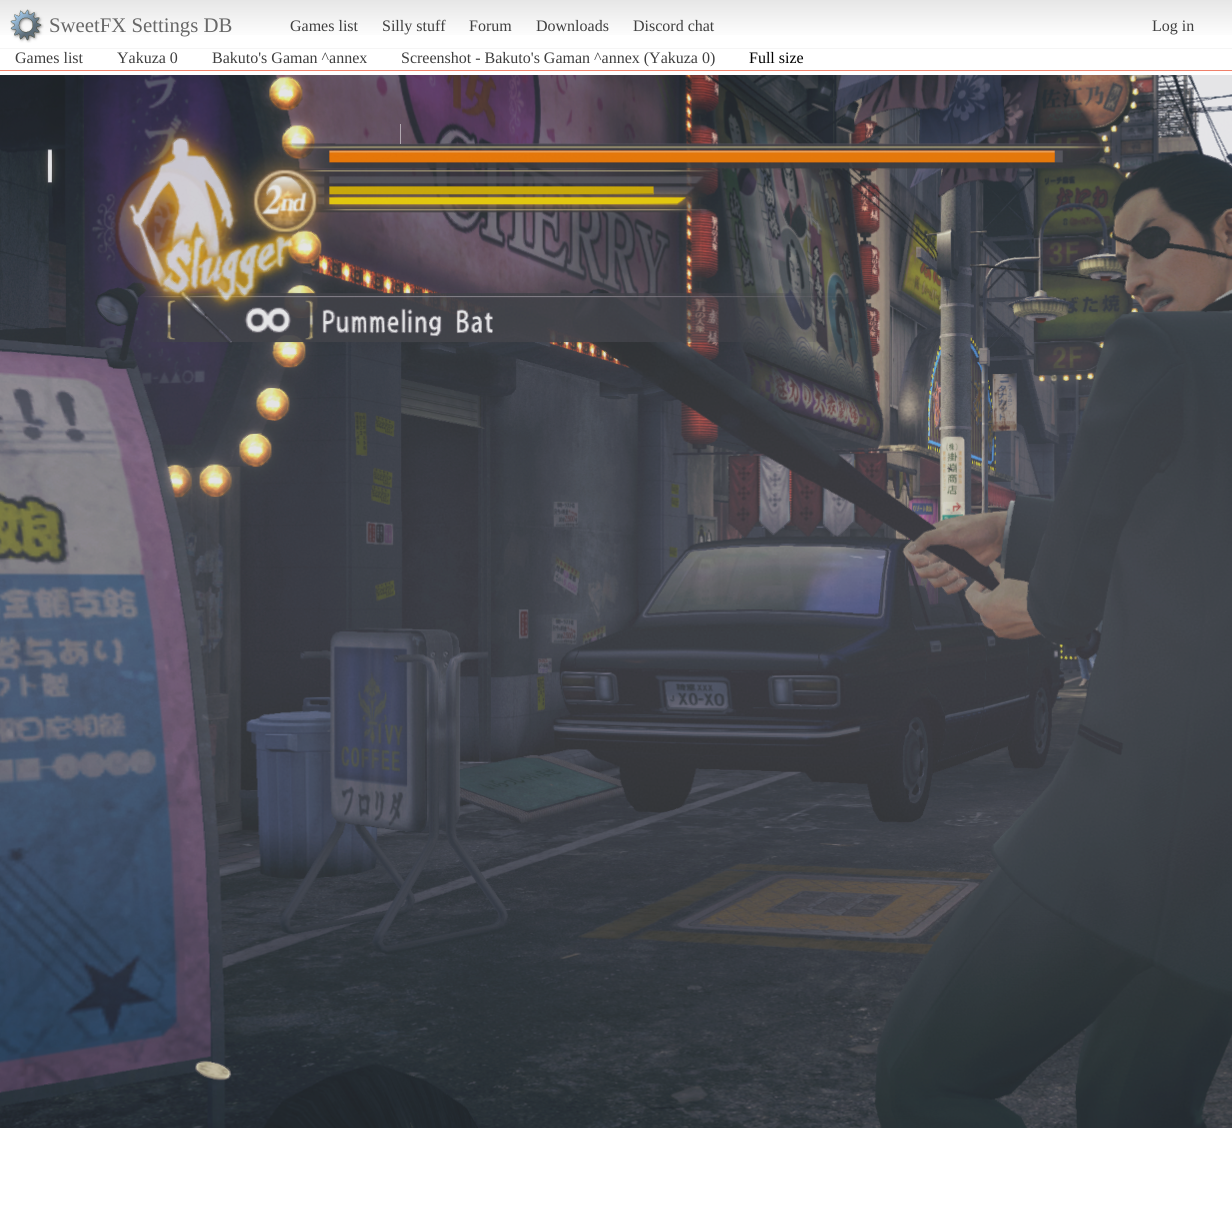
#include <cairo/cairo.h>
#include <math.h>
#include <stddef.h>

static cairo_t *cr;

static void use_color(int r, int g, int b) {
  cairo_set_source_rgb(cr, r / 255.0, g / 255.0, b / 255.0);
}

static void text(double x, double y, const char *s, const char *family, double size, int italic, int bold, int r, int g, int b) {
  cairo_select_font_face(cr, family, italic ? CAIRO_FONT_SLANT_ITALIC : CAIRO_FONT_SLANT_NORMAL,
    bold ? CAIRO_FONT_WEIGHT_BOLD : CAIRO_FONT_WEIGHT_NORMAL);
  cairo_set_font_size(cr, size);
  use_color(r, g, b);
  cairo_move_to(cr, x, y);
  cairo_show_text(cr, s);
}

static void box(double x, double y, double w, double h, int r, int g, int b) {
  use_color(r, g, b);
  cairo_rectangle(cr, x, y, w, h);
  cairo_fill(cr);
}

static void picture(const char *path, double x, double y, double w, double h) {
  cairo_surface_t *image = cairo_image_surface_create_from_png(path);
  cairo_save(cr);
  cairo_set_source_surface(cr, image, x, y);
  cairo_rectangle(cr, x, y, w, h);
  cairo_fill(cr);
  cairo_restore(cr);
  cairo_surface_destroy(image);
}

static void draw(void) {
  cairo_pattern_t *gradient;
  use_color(255, 255, 255);
  cairo_paint(cr);
  gradient = cairo_pattern_create_linear(616, 0, 616, 48);
  cairo_pattern_add_color_stop_rgba(gradient, 0, 0.902, 0.902, 0.902, 1);
  cairo_pattern_add_color_stop_rgba(gradient, 0.8, 1, 1, 1, 1);
  cairo_set_source(cr, gradient);
  cairo_pattern_destroy(gradient);
  cairo_rectangle(cr, 0, 0, 1232, 35);
  cairo_fill(cr);
  box(0, 48, 1232, 1, 245, 245, 245);
  picture("img_01.png", 10, 9, 34, 34);
  box(0, 70, 1232, 1, 240, 128, 106);
  picture("img_02.png", 0, 75, 1232, 1053);
  cairo_set_source_rgba(cr, 1, 1, 1, 0.5);
  cairo_rectangle(cr, 400, 124, 1, 20);
  cairo_fill(cr);
  text(49, 32, "SweetFX Settings DB", "Liberation Serif", 20.75, 0, 0, 104, 104, 104);
  text(290, 31, "Games list", "Liberation Serif", 16, 0, 0, 63, 63, 63);
  text(382, 31, "Silly stuff", "Liberation Serif", 16, 0, 0, 63, 63, 63);
  text(469, 31, "Forum", "Liberation Serif", 16, 0, 0, 63, 63, 63);
  text(536, 31, "Downloads", "Liberation Serif", 16, 0, 0, 63, 63, 63);
  text(633, 31, "Discord chat", "Liberation Serif", 16, 0, 0, 63, 63, 63);
  text(1152, 31, "Log in", "Liberation Serif", 16, 0, 0, 63, 63, 63);
  text(15, 63, "Games list", "Liberation Serif", 16, 0, 0, 63, 63, 63);
  text(117, 63, "Yakuza 0", "Liberation Serif", 16, 0, 0, 63, 63, 63);
  text(212, 63, "Bakuto's Gaman ^annex", "Liberation Serif", 16, 0, 0, 63, 63, 63);
  text(401, 63, "Screenshot - Bakuto's Gaman ^annex (Yakuza 0)", "Liberation Serif", 16, 0, 0, 63, 63, 63);
  text(749, 63, "Full size", "Liberation Serif", 16, 0, 0, 0, 0, 0);
}

int main(void) {
  cairo_surface_t *surface = cairo_image_surface_create(CAIRO_FORMAT_RGB24, 1232, 1220);
  cr = cairo_create(surface);
  cairo_font_options_t *options = cairo_font_options_create();
  cairo_font_options_set_hint_metrics(options, CAIRO_HINT_METRICS_OFF);
  cairo_font_options_set_hint_style(options, CAIRO_HINT_STYLE_NONE);
  cairo_set_font_options(cr, options);
  cairo_set_miter_limit(cr, 4);
  draw();
  cairo_surface_write_to_png(surface, "out.png");
  cairo_font_options_destroy(options);
  cairo_destroy(cr);
  cairo_surface_destroy(surface);
  return 0;
}
